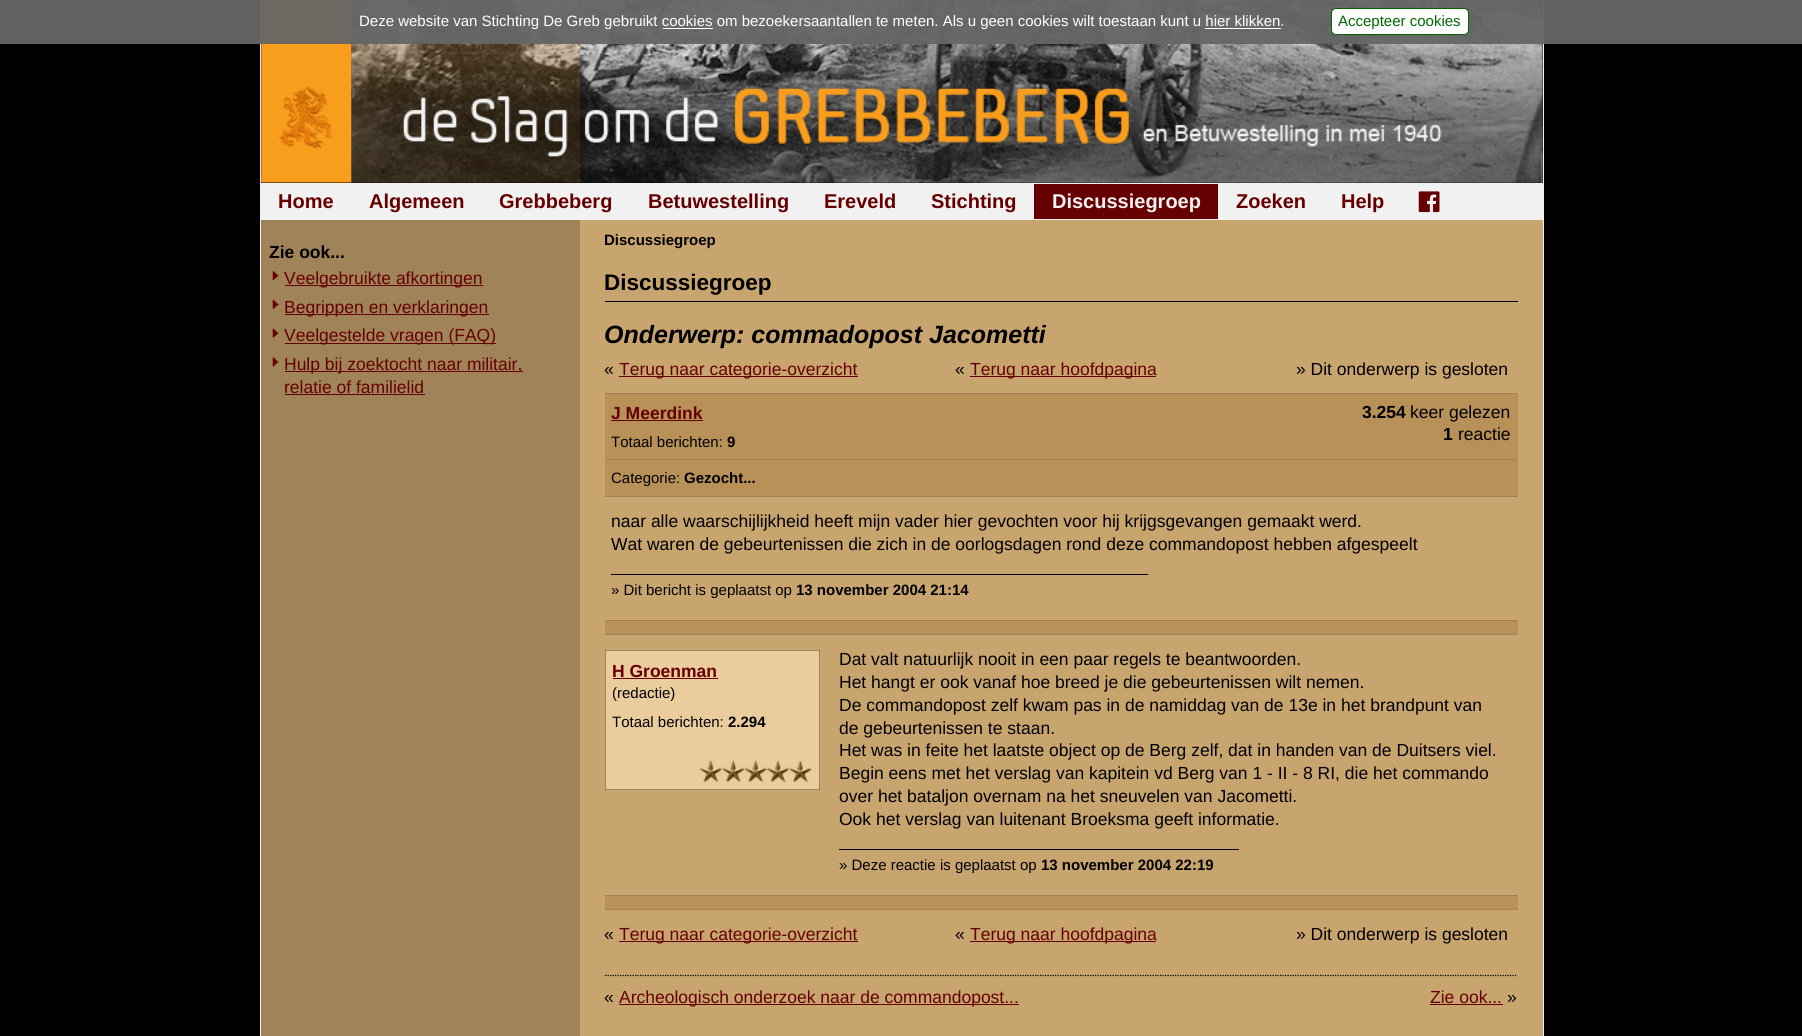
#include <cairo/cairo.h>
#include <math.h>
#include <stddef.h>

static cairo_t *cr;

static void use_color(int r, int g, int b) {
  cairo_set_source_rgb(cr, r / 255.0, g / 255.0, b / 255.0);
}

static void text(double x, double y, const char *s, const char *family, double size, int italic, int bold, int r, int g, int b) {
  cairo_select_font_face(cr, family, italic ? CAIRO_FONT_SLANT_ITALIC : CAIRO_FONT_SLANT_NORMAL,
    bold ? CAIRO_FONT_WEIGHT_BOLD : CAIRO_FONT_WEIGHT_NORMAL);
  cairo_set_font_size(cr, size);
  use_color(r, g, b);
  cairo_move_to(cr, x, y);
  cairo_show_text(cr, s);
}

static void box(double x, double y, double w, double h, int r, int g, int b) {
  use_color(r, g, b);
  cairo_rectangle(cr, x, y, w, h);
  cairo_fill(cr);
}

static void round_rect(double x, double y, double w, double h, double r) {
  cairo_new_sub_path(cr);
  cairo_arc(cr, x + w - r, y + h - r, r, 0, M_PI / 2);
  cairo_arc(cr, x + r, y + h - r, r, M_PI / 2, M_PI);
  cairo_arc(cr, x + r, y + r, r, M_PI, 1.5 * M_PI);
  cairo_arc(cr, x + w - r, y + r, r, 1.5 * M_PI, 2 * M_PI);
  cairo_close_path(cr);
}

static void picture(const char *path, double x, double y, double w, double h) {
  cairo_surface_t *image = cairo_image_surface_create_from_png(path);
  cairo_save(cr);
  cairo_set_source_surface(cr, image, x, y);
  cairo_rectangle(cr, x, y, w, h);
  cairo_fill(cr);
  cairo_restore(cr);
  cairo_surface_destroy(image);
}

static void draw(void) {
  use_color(0, 0, 0);
  cairo_paint(cr);
  box(261, 220, 319, 816, 160, 131, 88);
  cairo_rectangle(cr, 260.5, -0.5, 1283, 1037);
  use_color(241, 241, 241);
  cairo_set_line_width(cr, 1);
  cairo_stroke(cr);
  picture("img_01.png", 351, 0, 1192, 183);
  picture("img_02.png", 261, 0, 1282, 183);
  cairo_set_source_rgba(cr, 0.4, 0.4, 0.4, 0.95);
  cairo_rectangle(cr, 0, 0, 1802, 44);
  cairo_fill(cr);
  use_color(255, 255, 255);
  round_rect(1331.5, 8.5, 137, 26, 4.5);
  cairo_fill_preserve(cr);
  use_color(0, 102, 0);
  cairo_stroke(cr);
  box(663, 28, 50, 1, 255, 255, 255);
  box(1205, 28, 76, 1, 255, 255, 255);
  box(261, 183, 1282, 37, 241, 241, 241);
  box(1034, 184, 184, 35, 102, 0, 0);
  picture("img_03.png", 1418, 191, 22, 22);
  picture("img_04.png", 272, 271, 7, 10);
  box(285, 285, 198, 1, 102, 0, 0);
  picture("img_05.png", 272, 300, 7, 9);
  box(285, 314, 204, 1, 102, 0, 0);
  picture("img_06.png", 272, 328, 7, 10);
  box(285, 343, 211, 1, 102, 0, 0);
  picture("img_07.png", 272, 357, 7, 10);
  box(285, 371, 238, 1, 102, 0, 0);
  box(285, 394, 140, 1, 102, 0, 0);
  box(580, 220, 963, 816, 200, 164, 110);
  box(605, 301, 913, 1, 0, 0, 0);
  box(619, 376, 239, 1, 102, 0, 0);
  box(970, 376, 186, 1, 102, 0, 0);
  box(605, 394, 913, 65, 183, 145, 87);
  box(605, 393, 913, 1, 160, 131, 88);
  box(611, 420, 92, 1, 102, 0, 0);
  box(605, 460, 913, 36, 183, 145, 87);
  box(605, 459, 913, 1, 160, 131, 88);
  box(605, 496, 913, 1, 160, 131, 88);
  box(605, 620, 913, 1, 160, 131, 88);
  box(611, 574, 537, 1, 0, 0, 0);
  box(605, 621, 913, 13, 183, 145, 87);
  box(605, 634, 913, 1, 160, 131, 88);
  box(605, 895, 913, 1, 160, 131, 88);
  box(606, 651, 213, 138, 235, 204, 157);
  picture("img_08.png", 699, 760, 113, 23);
  cairo_rectangle(cr, 605.5, 650.5, 214, 139);
  use_color(160, 131, 88);
  cairo_stroke(cr);
  box(613, 678, 105, 1, 102, 0, 0);
  box(839, 849, 400, 1, 0, 0, 0);
  box(605, 896, 913, 13, 183, 145, 87);
  box(605, 909, 913, 1, 160, 131, 88);
  box(619, 941, 239, 1, 102, 0, 0);
  box(970, 941, 186, 1, 102, 0, 0);
  cairo_new_path(cr);
  cairo_move_to(cr, 605, 975.5);
  cairo_line_to(cr, 1517.5, 975.5);
  use_color(0, 0, 0);
  cairo_set_line_width(cr, 1.2);
  cairo_set_dash(cr, (double[]){1.25, 1.25}, 2, 0);
  cairo_stroke(cr);
  box(619, 1004, 400, 1, 102, 0, 0);
  box(1430, 1004, 73, 1, 102, 0, 0);
  text(359, 26, "Deze website van Stichting De Greb gebruikt cookies om bezoekersaantallen te meten. Als u geen cookies wilt toestaan kunt u hier klikken.", "Liberation Sans", 15, 0, 0, 255, 255, 255);
  text(1338, 26, "Accepteer cookies", "Liberation Sans", 15, 0, 0, 0, 102, 0);
  text(278, 208, "Home", "Liberation Sans", 20, 0, 1, 102, 0, 0);
  text(369, 208, "Algemeen", "Liberation Sans", 20, 0, 1, 102, 0, 0);
  text(499, 208, "Grebbeberg", "Liberation Sans", 20, 0, 1, 102, 0, 0);
  text(648, 208, "Betuwestelling", "Liberation Sans", 20, 0, 1, 102, 0, 0);
  text(824, 208, "Ereveld", "Liberation Sans", 20, 0, 1, 102, 0, 0);
  text(931, 208, "Stichting", "Liberation Sans", 20, 0, 1, 102, 0, 0);
  text(1052, 208, "Discussiegroep", "Liberation Sans", 20, 0, 1, 241, 241, 241);
  text(1236, 208, "Zoeken", "Liberation Sans", 20, 0, 1, 102, 0, 0);
  text(1341, 208, "Help", "Liberation Sans", 20, 0, 1, 102, 0, 0);
  text(269, 258, "Zie ook...", "Liberation Sans", 17.5, 0, 1, 0, 0, 0);
  text(284, 284, "Veelgebruikte afkortingen", "Liberation Sans", 17.5, 0, 0, 102, 0, 0);
  text(284, 313, "Begrippen en verklaringen", "Liberation Sans", 17.5, 0, 0, 102, 0, 0);
  text(284, 341, "Veelgestelde vragen (FAQ)", "Liberation Sans", 17.5, 0, 0, 102, 0, 0);
  text(284, 370, "Hulp bij zoektocht naar militair,", "Liberation Sans", 17.5, 0, 0, 102, 0, 0);
  text(284, 393, "relatie of familielid", "Liberation Sans", 17.5, 0, 0, 102, 0, 0);
  text(604, 245, "Discussiegroep", "Liberation Sans", 15, 0, 1, 0, 0, 0);
  text(604, 290, "Discussiegroep", "Liberation Sans", 22.5, 0, 1, 0, 0, 0);
  text(604, 343, "Onderwerp: commadopost Jacometti", "Liberation Sans", 25, 1, 1, 0, 0, 0);
  text(604, 375, "«", "Liberation Sans", 17.5, 0, 0, 0, 0, 0);
  text(619, 375, "Terug naar categorie-overzicht", "Liberation Sans", 17.5, 0, 0, 102, 0, 0);
  text(955, 375, "«", "Liberation Sans", 17.5, 0, 0, 0, 0, 0);
  text(970, 375, "Terug naar hoofdpagina", "Liberation Sans", 17.5, 0, 0, 102, 0, 0);
  text(1296, 375, "» Dit onderwerp is gesloten", "Liberation Sans", 17.5, 0, 0, 0, 0, 0);
  text(611, 419, "J Meerdink", "Liberation Sans", 17.5, 0, 1, 102, 0, 0);
  text(611, 447, "Totaal berichten:", "Liberation Sans", 15, 0, 0, 0, 0, 0);
  text(727, 447, "9", "Liberation Sans", 15, 0, 1, 0, 0, 0);
  text(1362, 418, "3.254", "Liberation Sans", 17.5, 0, 1, 0, 0, 0);
  text(1410, 418, "keer gelezen", "Liberation Sans", 17.5, 0, 0, 0, 0, 0);
  text(1443, 440, "1", "Liberation Sans", 17.5, 0, 1, 0, 0, 0);
  text(1458, 440, "reactie", "Liberation Sans", 17.5, 0, 0, 0, 0, 0);
  text(611, 483, "Categorie:", "Liberation Sans", 15, 0, 0, 0, 0, 0);
  text(684, 483, "Gezocht...", "Liberation Sans", 15, 0, 1, 0, 0, 0);
  text(611, 527, "naar alle waarschijlijkheid heeft mijn vader hier gevochten voor hij krijgsgevangen gemaakt werd.", "Liberation Sans", 17.5, 0, 0, 0, 0, 0);
  text(611, 550, "Wat waren de gebeurtenissen die zich in de oorlogsdagen rond deze commandopost hebben afgespeelt", "Liberation Sans", 17.5, 0, 0, 0, 0, 0);
  text(611, 595, "» Dit bericht is geplaatst op", "Liberation Sans", 15, 0, 0, 0, 0, 0);
  text(796, 595, "13 november 2004 21:14", "Liberation Sans", 15, 0, 1, 0, 0, 0);
  text(612, 677, "H Groenman", "Liberation Sans", 17.5, 0, 1, 102, 0, 0);
  text(612, 698, "(redactie)", "Liberation Sans", 15, 0, 0, 0, 0, 0);
  text(612, 727, "Totaal berichten:", "Liberation Sans", 15, 0, 0, 0, 0, 0);
  text(728, 727, "2.294", "Liberation Sans", 15, 0, 1, 0, 0, 0);
  text(839, 665, "Dat valt natuurlijk nooit in een paar regels te beantwoorden.", "Liberation Sans", 17.5, 0, 0, 0, 0, 0);
  text(839, 688, "Het hangt er ook vanaf hoe breed je die gebeurtenissen wilt nemen.", "Liberation Sans", 17.5, 0, 0, 0, 0, 0);
  text(839, 711, "De commandopost zelf kwam pas in de namiddag van de 13e in het brandpunt van", "Liberation Sans", 17.5, 0, 0, 0, 0, 0);
  text(839, 734, "de gebeurtenissen te staan.", "Liberation Sans", 17.5, 0, 0, 0, 0, 0);
  text(839, 756, "Het was in feite het laatste object op de Berg zelf, dat in handen van de Duitsers viel.", "Liberation Sans", 17.5, 0, 0, 0, 0, 0);
  text(839, 779, "Begin eens met het verslag van kapitein vd Berg van 1 - II - 8 RI, die het commando", "Liberation Sans", 17.5, 0, 0, 0, 0, 0);
  text(839, 802, "over het bataljon overnam na het sneuvelen van Jacometti.", "Liberation Sans", 17.5, 0, 0, 0, 0, 0);
  text(839, 825, "Ook het verslag van luitenant Broeksma geeft informatie.", "Liberation Sans", 17.5, 0, 0, 0, 0, 0);
  text(839, 870, "» Deze reactie is geplaatst op", "Liberation Sans", 15, 0, 0, 0, 0, 0);
  text(1041, 870, "13 november 2004 22:19", "Liberation Sans", 15, 0, 1, 0, 0, 0);
  text(604, 940, "«", "Liberation Sans", 17.5, 0, 0, 0, 0, 0);
  text(619, 940, "Terug naar categorie-overzicht", "Liberation Sans", 17.5, 0, 0, 102, 0, 0);
  text(955, 940, "«", "Liberation Sans", 17.5, 0, 0, 0, 0, 0);
  text(970, 940, "Terug naar hoofdpagina", "Liberation Sans", 17.5, 0, 0, 102, 0, 0);
  text(1296, 940, "» Dit onderwerp is gesloten", "Liberation Sans", 17.5, 0, 0, 0, 0, 0);
  text(604, 1003, "«", "Liberation Sans", 17.5, 0, 0, 0, 0, 0);
  text(619, 1003, "Archeologisch onderzoek naar de commandopost...", "Liberation Sans", 17.5, 0, 0, 102, 0, 0);
  text(1430, 1003, "Zie ook...", "Liberation Sans", 17.5, 0, 0, 102, 0, 0);
  text(1507, 1003, "»", "Liberation Sans", 17.5, 0, 0, 0, 0, 0);
}

int main(void) {
  cairo_surface_t *surface = cairo_image_surface_create(CAIRO_FORMAT_RGB24, 1802, 1036);
  cr = cairo_create(surface);
  cairo_font_options_t *options = cairo_font_options_create();
  cairo_font_options_set_hint_metrics(options, CAIRO_HINT_METRICS_OFF);
  cairo_font_options_set_hint_style(options, CAIRO_HINT_STYLE_NONE);
  cairo_set_font_options(cr, options);
  cairo_set_miter_limit(cr, 4);
  draw();
  cairo_surface_write_to_png(surface, "out.png");
  cairo_font_options_destroy(options);
  cairo_destroy(cr);
  cairo_surface_destroy(surface);
  return 0;
}
